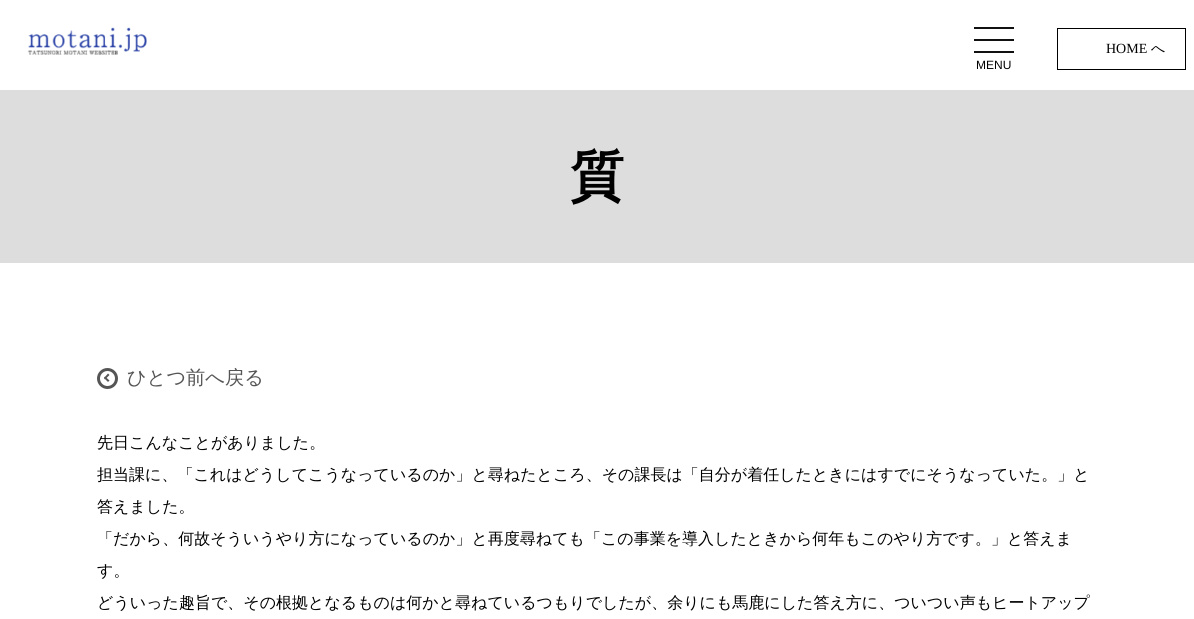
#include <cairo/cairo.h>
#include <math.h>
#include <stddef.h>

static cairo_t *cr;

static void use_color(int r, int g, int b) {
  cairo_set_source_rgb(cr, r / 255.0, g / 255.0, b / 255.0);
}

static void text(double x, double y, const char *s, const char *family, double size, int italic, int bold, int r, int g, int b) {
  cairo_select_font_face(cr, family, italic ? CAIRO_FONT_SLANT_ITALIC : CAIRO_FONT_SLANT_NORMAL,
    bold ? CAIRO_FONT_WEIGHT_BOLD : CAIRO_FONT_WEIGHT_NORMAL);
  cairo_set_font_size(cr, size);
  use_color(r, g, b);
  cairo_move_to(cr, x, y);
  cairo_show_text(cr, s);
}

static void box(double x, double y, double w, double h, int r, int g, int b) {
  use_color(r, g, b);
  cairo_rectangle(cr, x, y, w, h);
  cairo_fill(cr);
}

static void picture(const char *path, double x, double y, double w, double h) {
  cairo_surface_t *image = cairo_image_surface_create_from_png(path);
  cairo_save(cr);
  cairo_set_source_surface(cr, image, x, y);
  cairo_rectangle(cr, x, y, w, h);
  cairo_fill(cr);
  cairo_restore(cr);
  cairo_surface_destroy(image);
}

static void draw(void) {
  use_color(255, 255, 255);
  cairo_paint(cr);
  picture("img_01.png", 27, 27, 120, 28);
  cairo_rectangle(cr, 1057.5, 28.5, 128, 41);
  use_color(0, 0, 0);
  cairo_set_line_width(cr, 1);
  cairo_stroke(cr);
  box(974, 27, 40, 2, 17, 17, 17);
  box(974, 39, 40, 2, 17, 17, 17);
  box(974, 51, 40, 2, 17, 17, 17);
  box(0, 90, 1194, 173, 221, 221, 221);
  cairo_arc(cr, 107.5, 378.5, 9, 0, 2 * M_PI);
  use_color(85, 85, 85);
  cairo_set_line_width(cr, 3);
  cairo_stroke(cr);
  cairo_new_path(cr);
  cairo_move_to(cr, 108, 382);
  cairo_line_to(cr, 104, 378);
  cairo_line_to(cr, 105, 376.5);
  cairo_line_to(cr, 109.5, 380.5);
  cairo_close_path(cr);
  cairo_fill(cr);
  cairo_new_path(cr);
  cairo_move_to(cr, 105, 379.5);
  cairo_line_to(cr, 104, 378);
  cairo_line_to(cr, 108, 373.5);
  cairo_line_to(cr, 109.5, 375);
  cairo_close_path(cr);
  cairo_fill(cr);
  text(1106, 53, "HOME", "Liberation Serif", 14, 0, 0, 0, 0, 0);
  text(1151, 53, "へ", "WenQuanYi Zen Hei Medium", 14, 0, 0, 0, 0, 0);
  text(976, 69, "MENU", "Liberation Sans", 12, 0, 0, 0, 0, 0);
  text(570, 195, "質", "WenQuanYi Zen Hei", 54, 0, 1, 0, 0, 0);
  text(127, 384, "ひとつ前へ戻る", "WenQuanYi Zen Hei Medium", 19.25, 0, 0, 85, 85, 85);
  text(97, 448, "先日こんなことがありました。", "WenQuanYi Zen Hei Medium", 16, 0, 0, 0, 0, 0);
  text(97, 480, "担当課に、「これはどうしてこうなっているのか」と尋ねたところ、その課長は「自分が着任したときにはすでにそうなっていた。」と", "WenQuanYi Zen Hei Medium", 16, 0, 0, 0, 0, 0);
  text(97, 512, "答えました。", "WenQuanYi Zen Hei Medium", 16, 0, 0, 0, 0, 0);
  text(97, 544, "「だから、何故そういうやり方になっているのか」と再度尋ねても「この事業を導入したときから何年もこのやり方です。」と答えま", "WenQuanYi Zen Hei Medium", 16, 0, 0, 0, 0, 0);
  text(97, 576, "す。", "WenQuanYi Zen Hei Medium", 16, 0, 0, 0, 0, 0);
  text(97, 608, "どういった趣旨で、その根拠となるものは何かと尋ねているつもりでしたが、余りにも馬鹿にした答え方に、ついつい声もヒートアップ", "WenQuanYi Zen Hei Medium", 16, 0, 0, 0, 0, 0);
}

int main(void) {
  cairo_surface_t *surface = cairo_image_surface_create(CAIRO_FORMAT_RGB24, 1194, 619);
  cr = cairo_create(surface);
  cairo_font_options_t *options = cairo_font_options_create();
  cairo_font_options_set_hint_metrics(options, CAIRO_HINT_METRICS_OFF);
  cairo_font_options_set_hint_style(options, CAIRO_HINT_STYLE_NONE);
  cairo_set_font_options(cr, options);
  cairo_set_miter_limit(cr, 4);
  draw();
  cairo_surface_write_to_png(surface, "out.png");
  cairo_font_options_destroy(options);
  cairo_destroy(cr);
  cairo_surface_destroy(surface);
  return 0;
}
